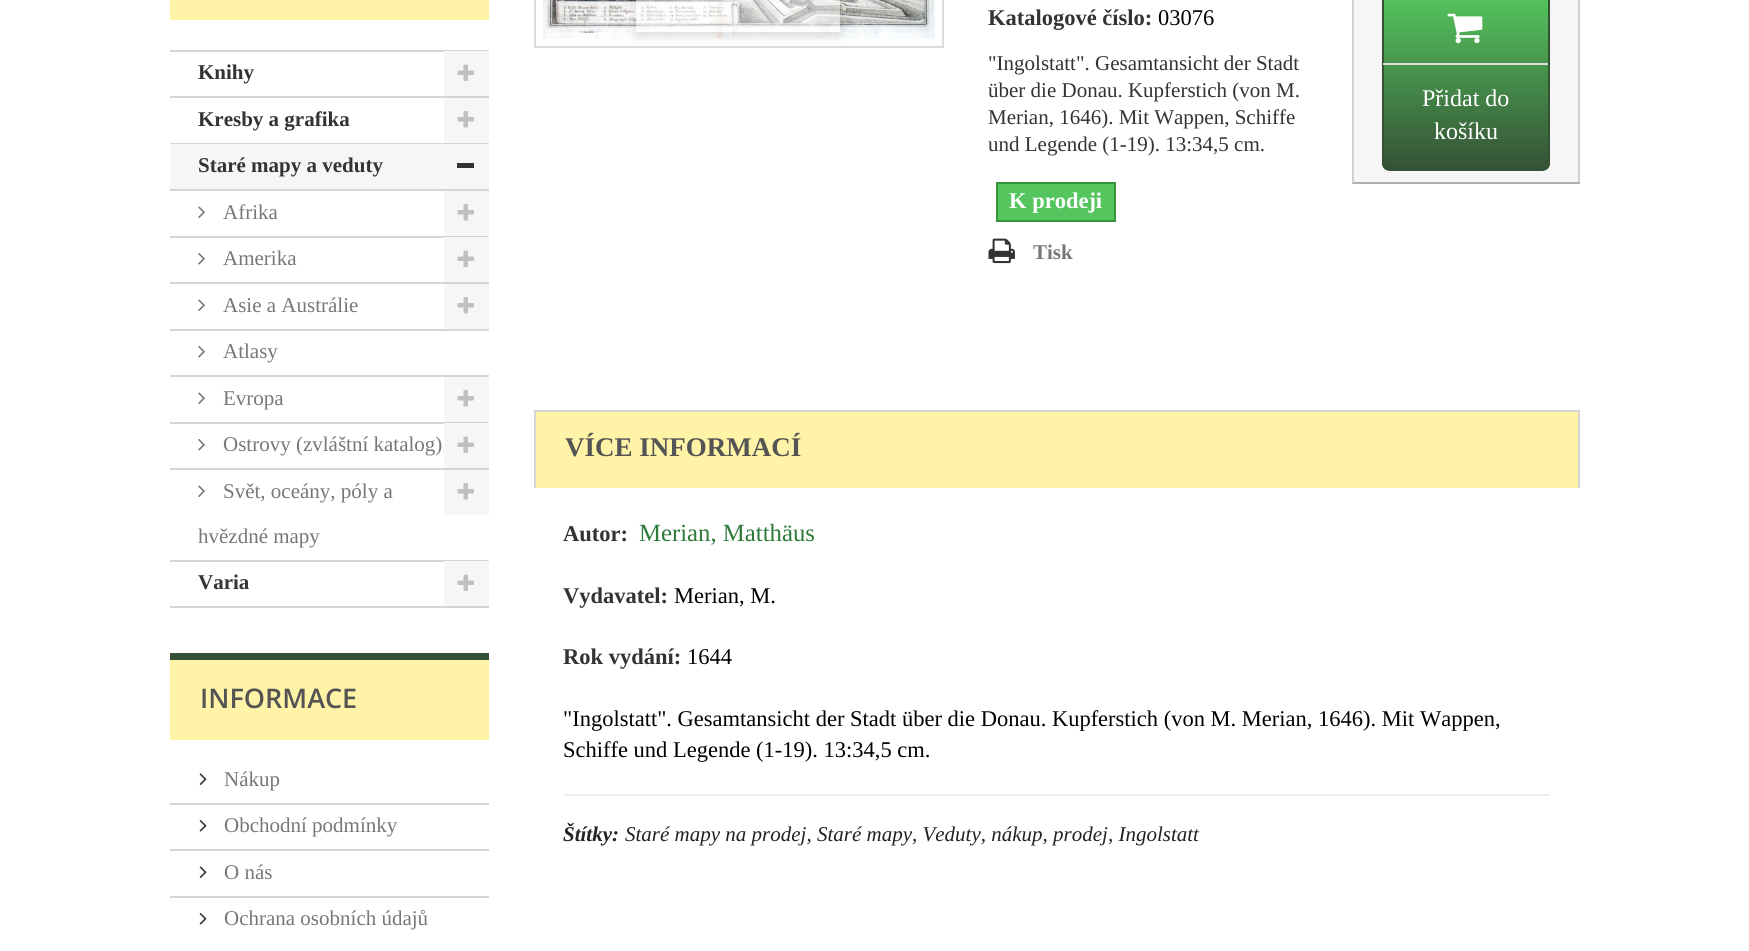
#include <cairo/cairo.h>
#include <math.h>
#include <stddef.h>

static cairo_t *cr;

static void use_color(int r, int g, int b) {
  cairo_set_source_rgb(cr, r / 255.0, g / 255.0, b / 255.0);
}

static void text(double x, double y, const char *s, const char *family, double size, int italic, int bold, int r, int g, int b) {
  cairo_select_font_face(cr, family, italic ? CAIRO_FONT_SLANT_ITALIC : CAIRO_FONT_SLANT_NORMAL,
    bold ? CAIRO_FONT_WEIGHT_BOLD : CAIRO_FONT_WEIGHT_NORMAL);
  cairo_set_font_size(cr, size);
  use_color(r, g, b);
  cairo_move_to(cr, x, y);
  cairo_show_text(cr, s);
}

static void box(double x, double y, double w, double h, int r, int g, int b) {
  use_color(r, g, b);
  cairo_rectangle(cr, x, y, w, h);
  cairo_fill(cr);
}

static void round_rect(double x, double y, double w, double h, double r) {
  cairo_new_sub_path(cr);
  cairo_arc(cr, x + w - r, y + h - r, r, 0, M_PI / 2);
  cairo_arc(cr, x + r, y + h - r, r, M_PI / 2, M_PI);
  cairo_arc(cr, x + r, y + r, r, M_PI, 1.5 * M_PI);
  cairo_arc(cr, x + w - r, y + r, r, 1.5 * M_PI, 2 * M_PI);
  cairo_close_path(cr);
}

static void shadow(double x, double y, double w, double h, double r, double blur, double alpha) {
  cairo_push_group_with_content(cr, CAIRO_CONTENT_ALPHA);
  cairo_set_operator(cr, CAIRO_OPERATOR_SOURCE);
  for (int i = 15; i >= -15 && fmin(w, h) + blur * i / 3 > 0; i -= 2) {
    double e = blur * i / 6;
    cairo_set_source_rgba(cr, 0, 0, 0, alpha * erfc((i - 1) / 8.5) / 2);
    round_rect(x - e, y - e, w + 2 * e, h + 2 * e, fmax(0, fmin(r + e + blur * .6, fmin(w, h) / 2 + e)));
    cairo_fill(cr);
  }
  cairo_pattern_t *soft = cairo_pop_group(cr);
  cairo_mask(cr, soft);
  cairo_pattern_destroy(soft);
}

static void picture(const char *path, double x, double y, double w, double h) {
  cairo_surface_t *image = cairo_image_surface_create_from_png(path);
  cairo_save(cr);
  cairo_set_source_surface(cr, image, x, y);
  cairo_rectangle(cr, x, y, w, h);
  cairo_fill(cr);
  cairo_restore(cr);
  cairo_surface_destroy(image);
}

static void draw(void) {
  cairo_pattern_t *gradient;
  use_color(255, 255, 255);
  cairo_paint(cr);
  box(170, 0, 319, 20, 255, 243, 167);
  box(170, 50, 319, 2, 214, 212, 212);
  box(170, 96, 319, 2, 214, 212, 212);
  box(444, 51, 45, 45, 246, 246, 246);
  picture("img_01.png", 457, 64, 17, 17);
  box(170, 143, 319, 1, 214, 212, 212);
  box(444, 98, 45, 45, 246, 246, 246);
  picture("img_02.png", 457, 111, 17, 17);
  box(170, 144, 319, 45, 246, 246, 246);
  box(170, 189, 319, 2, 214, 212, 212);
  box(457, 163, 17, 5, 51, 51, 51);
  box(170, 236, 319, 2, 214, 212, 212);
  picture("img_03.png", 198, 206, 7, 12);
  box(444, 191, 45, 45, 246, 246, 246);
  picture("img_02.png", 457, 204, 17, 17);
  box(170, 282, 319, 2, 214, 212, 212);
  picture("img_04.png", 198, 253, 7, 12);
  box(444, 237, 45, 45, 246, 246, 246);
  picture("img_01.png", 457, 250, 17, 17);
  box(170, 329, 319, 2, 214, 212, 212);
  picture("img_03.png", 198, 299, 7, 12);
  box(444, 284, 45, 45, 246, 246, 246);
  picture("img_02.png", 457, 297, 17, 17);
  box(170, 375, 319, 2, 214, 212, 212);
  picture("img_04.png", 198, 346, 7, 12);
  box(170, 422, 319, 2, 214, 212, 212);
  picture("img_03.png", 198, 392, 7, 12);
  box(444, 377, 45, 45, 246, 246, 246);
  picture("img_02.png", 457, 390, 17, 17);
  box(170, 468, 319, 2, 214, 212, 212);
  picture("img_04.png", 198, 439, 7, 12);
  box(444, 423, 45, 45, 246, 246, 246);
  picture("img_01.png", 457, 436, 17, 17);
  box(170, 560, 319, 2, 214, 212, 212);
  picture("img_03.png", 198, 485, 7, 12);
  box(444, 470, 45, 45, 246, 246, 246);
  picture("img_02.png", 457, 483, 17, 17);
  box(170, 606, 319, 2, 214, 212, 212);
  box(444, 561, 45, 45, 246, 246, 246);
  picture("img_01.png", 457, 574, 17, 17);
  box(170, 660, 319, 80, 255, 243, 167);
  box(170, 653, 319, 7, 53, 81, 53);
  picture("img_05.png", 199, 773, 8, 12);
  box(170, 803, 319, 2, 214, 212, 212);
  picture("img_06.png", 199, 820, 8, 12);
  box(170, 849, 319, 2, 214, 212, 212);
  picture("img_05.png", 199, 866, 8, 12);
  box(170, 896, 319, 2, 214, 212, 212);
  picture("img_06.png", 199, 913, 8, 12);
  cairo_rectangle(cr, 535, -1, 408, 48);
  use_color(219, 219, 219);
  cairo_stroke(cr);
  box(543, 0, 392, 39, 251, 251, 251);
  picture("img_07.png", 543, 0, 392, 39);
  cairo_save(cr);
  cairo_set_fill_rule(cr, CAIRO_FILL_RULE_EVEN_ODD);
  cairo_new_path(cr);
  cairo_move_to(cr, 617, 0);
  cairo_line_to(cr, 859, 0);
  cairo_line_to(cr, 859, 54);
  cairo_line_to(cr, 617, 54);
  cairo_close_path(cr);
  cairo_move_to(cr, 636, -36);
  cairo_line_to(cr, 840, -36);
  cairo_line_to(cr, 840, 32);
  cairo_line_to(cr, 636, 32);
  cairo_close_path(cr);
  cairo_clip(cr);
  use_color(0, 0, 0);
  shadow(636, -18, 204, 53, 0, 6, 0.16);
  cairo_restore(cr);
  cairo_set_source_rgba(cr, 1, 1, 1, 0.5);
  cairo_rectangle(cr, 636, 0, 204, 32);
  cairo_fill(cr);
  picture("img_08.png", 791, 0, 26, 10);
  use_color(85, 198, 94);
  cairo_rectangle(cr, 997, 183, 118, 38);
  cairo_fill_preserve(cr);
  use_color(54, 148, 62);
  cairo_stroke(cr);
  picture("img_09.png", 988, 238, 27, 26);
  box(1354, 0, 224, 182, 246, 246, 246);
  box(1578, 0, 2, 183, 210, 208, 208);
  box(1352, 182, 228, 2, 176, 175, 175);
  box(1352, 0, 2, 183, 210, 208, 208);
  cairo_save(cr);
  round_rect(1382, -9, 168, 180, 8);
  cairo_clip(cr);
  gradient = cairo_pattern_create_linear(1466, -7.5, 1466, 170);
  cairo_pattern_add_color_stop_rgba(gradient, 0, 0.333, 0.776, 0.369, 1);
  cairo_pattern_add_color_stop_rgba(gradient, 1, 0.208, 0.318, 0.208, 1);
  cairo_set_source(cr, gradient);
  cairo_pattern_destroy(gradient);
  cairo_rectangle(cr, 1382, 0, 168, 170);
  cairo_fill(cr);
  cairo_restore(cr);
  round_rect(1383, -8, 166, 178, 7);
  use_color(53, 81, 53);
  cairo_stroke(cr);
  picture("img_10.png", 1447, 13, 36, 31);
  box(1383, 63, 165, 2, 221, 221, 221);
  box(536, 412, 1042, 76, 255, 243, 167);
  box(534, 410, 1046, 2, 214, 212, 212);
  box(1578, 410, 2, 78, 214, 212, 212);
  box(534, 410, 2, 78, 214, 212, 212);
  box(564, 794, 986, 2, 238, 238, 238);
  text(198, 79, "Knihy", "Liberation Serif", 21, 0, 1, 51, 51, 51);
  text(198, 126, "Kresby a grafika", "Liberation Serif", 21, 0, 1, 51, 51, 51);
  text(198, 172, "Staré mapy a veduty", "Liberation Serif", 21, 0, 1, 51, 51, 51);
  text(223, 219, "Afrika", "Liberation Serif", 21, 0, 0, 119, 119, 119);
  text(223, 265, "Amerika", "Liberation Serif", 21, 0, 0, 119, 119, 119);
  text(223, 312, "Asie a Austrálie", "Liberation Serif", 21, 0, 0, 119, 119, 119);
  text(223, 358, "Atlasy", "Liberation Serif", 21, 0, 0, 119, 119, 119);
  text(223, 405, "Evropa", "Liberation Serif", 21, 0, 0, 119, 119, 119);
  text(223, 451, "Ostrovy (zvláštní katalog)", "Liberation Serif", 21, 0, 0, 119, 119, 119);
  text(223, 498, "Svět, oceány, póly a", "Liberation Serif", 21, 0, 0, 119, 119, 119);
  text(198, 543, "hvězdné mapy", "Liberation Serif", 21, 0, 0, 119, 119, 119);
  text(198, 589, "Varia", "Liberation Serif", 21, 0, 1, 51, 51, 51);
  text(200, 708, "INFORMACE", "Open Sans SemiBold", 27, 0, 0, 85, 84, 84);
  text(224, 786, "Nákup", "Liberation Serif", 21, 0, 0, 119, 119, 119);
  text(224, 832, "Obchodní podmínky", "Liberation Serif", 21, 0, 0, 119, 119, 119);
  text(224, 879, "O nás", "Liberation Serif", 21, 0, 0, 119, 119, 119);
  text(224, 925, "Ochrana osobních údajů", "Liberation Serif", 21, 0, 0, 119, 119, 119);
  text(988, 25, "Katalogové číslo:", "Liberation Serif", 22.5, 0, 1, 51, 51, 51);
  text(1158, 25, "03076", "Liberation Serif", 22.5, 0, 0, 0, 0, 0);
  text(988, 70, "\"Ingolstatt\". Gesamtansicht der Stadt", "Liberation Serif", 21, 0, 0, 51, 51, 51);
  text(988, 97, "über die Donau. Kupferstich (von M.", "Liberation Serif", 21, 0, 0, 51, 51, 51);
  text(988, 124, "Merian, 1646). Mit Wappen, Schiffe", "Liberation Serif", 21, 0, 0, 51, 51, 51);
  text(988, 151, "und Legende (1-19). 13:34,5 cm.", "Liberation Serif", 21, 0, 0, 51, 51, 51);
  text(1009, 208, "K prodeji", "Liberation Serif", 22.5, 0, 1, 255, 255, 255);
  text(1033, 259, "Tisk", "Liberation Serif", 21, 0, 1, 119, 119, 119);
  text(1422, 106, "Přidat do", "Liberation Serif", 24, 0, 0, 255, 255, 255);
  text(1434, 139, "košíku", "Liberation Serif", 24, 0, 0, 255, 255, 255);
  text(565, 456, "VÍCE INFORMACÍ", "Liberation Serif", 27, 0, 1, 85, 84, 84);
  text(563, 541, "Autor:", "Liberation Serif", 22.5, 0, 1, 51, 51, 51);
  text(639, 541, "Merian, Matthäus", "Liberation Serif", 24.75, 0, 0, 46, 122, 58);
  text(563, 603, "Vydavatel:", "Liberation Serif", 22.5, 0, 1, 51, 51, 51);
  text(674, 603, "Merian, M.", "Liberation Serif", 22.5, 0, 0, 0, 0, 0);
  text(563, 664, "Rok vydání:", "Liberation Serif", 22.5, 0, 1, 51, 51, 51);
  text(687, 664, "1644", "Liberation Serif", 22.5, 0, 0, 0, 0, 0);
  text(563, 726, "\"Ingolstatt\". Gesamtansicht der Stadt über die Donau. Kupferstich (von M. Merian, 1646). Mit Wappen,", "Liberation Serif", 22.5, 0, 0, 0, 0, 0);
  text(563, 757, "Schiffe und Legende (1-19). 13:34,5 cm.", "Liberation Serif", 22.5, 0, 0, 0, 0, 0);
  text(563, 841, "Štítky:", "Liberation Serif", 21, 1, 1, 34, 34, 34);
  text(625, 841, "Staré mapy na prodej, Staré mapy, Veduty, nákup, prodej, Ingolstatt", "Liberation Serif", 21, 1, 0, 34, 34, 34);
}

int main(void) {
  cairo_surface_t *surface = cairo_image_surface_create(CAIRO_FORMAT_RGB24, 1749, 951);
  cr = cairo_create(surface);
  cairo_font_options_t *options = cairo_font_options_create();
  cairo_font_options_set_hint_metrics(options, CAIRO_HINT_METRICS_OFF);
  cairo_font_options_set_hint_style(options, CAIRO_HINT_STYLE_NONE);
  cairo_set_font_options(cr, options);
  cairo_set_miter_limit(cr, 4);
  draw();
  cairo_surface_write_to_png(surface, "out.png");
  cairo_font_options_destroy(options);
  cairo_destroy(cr);
  cairo_surface_destroy(surface);
  return 0;
}
